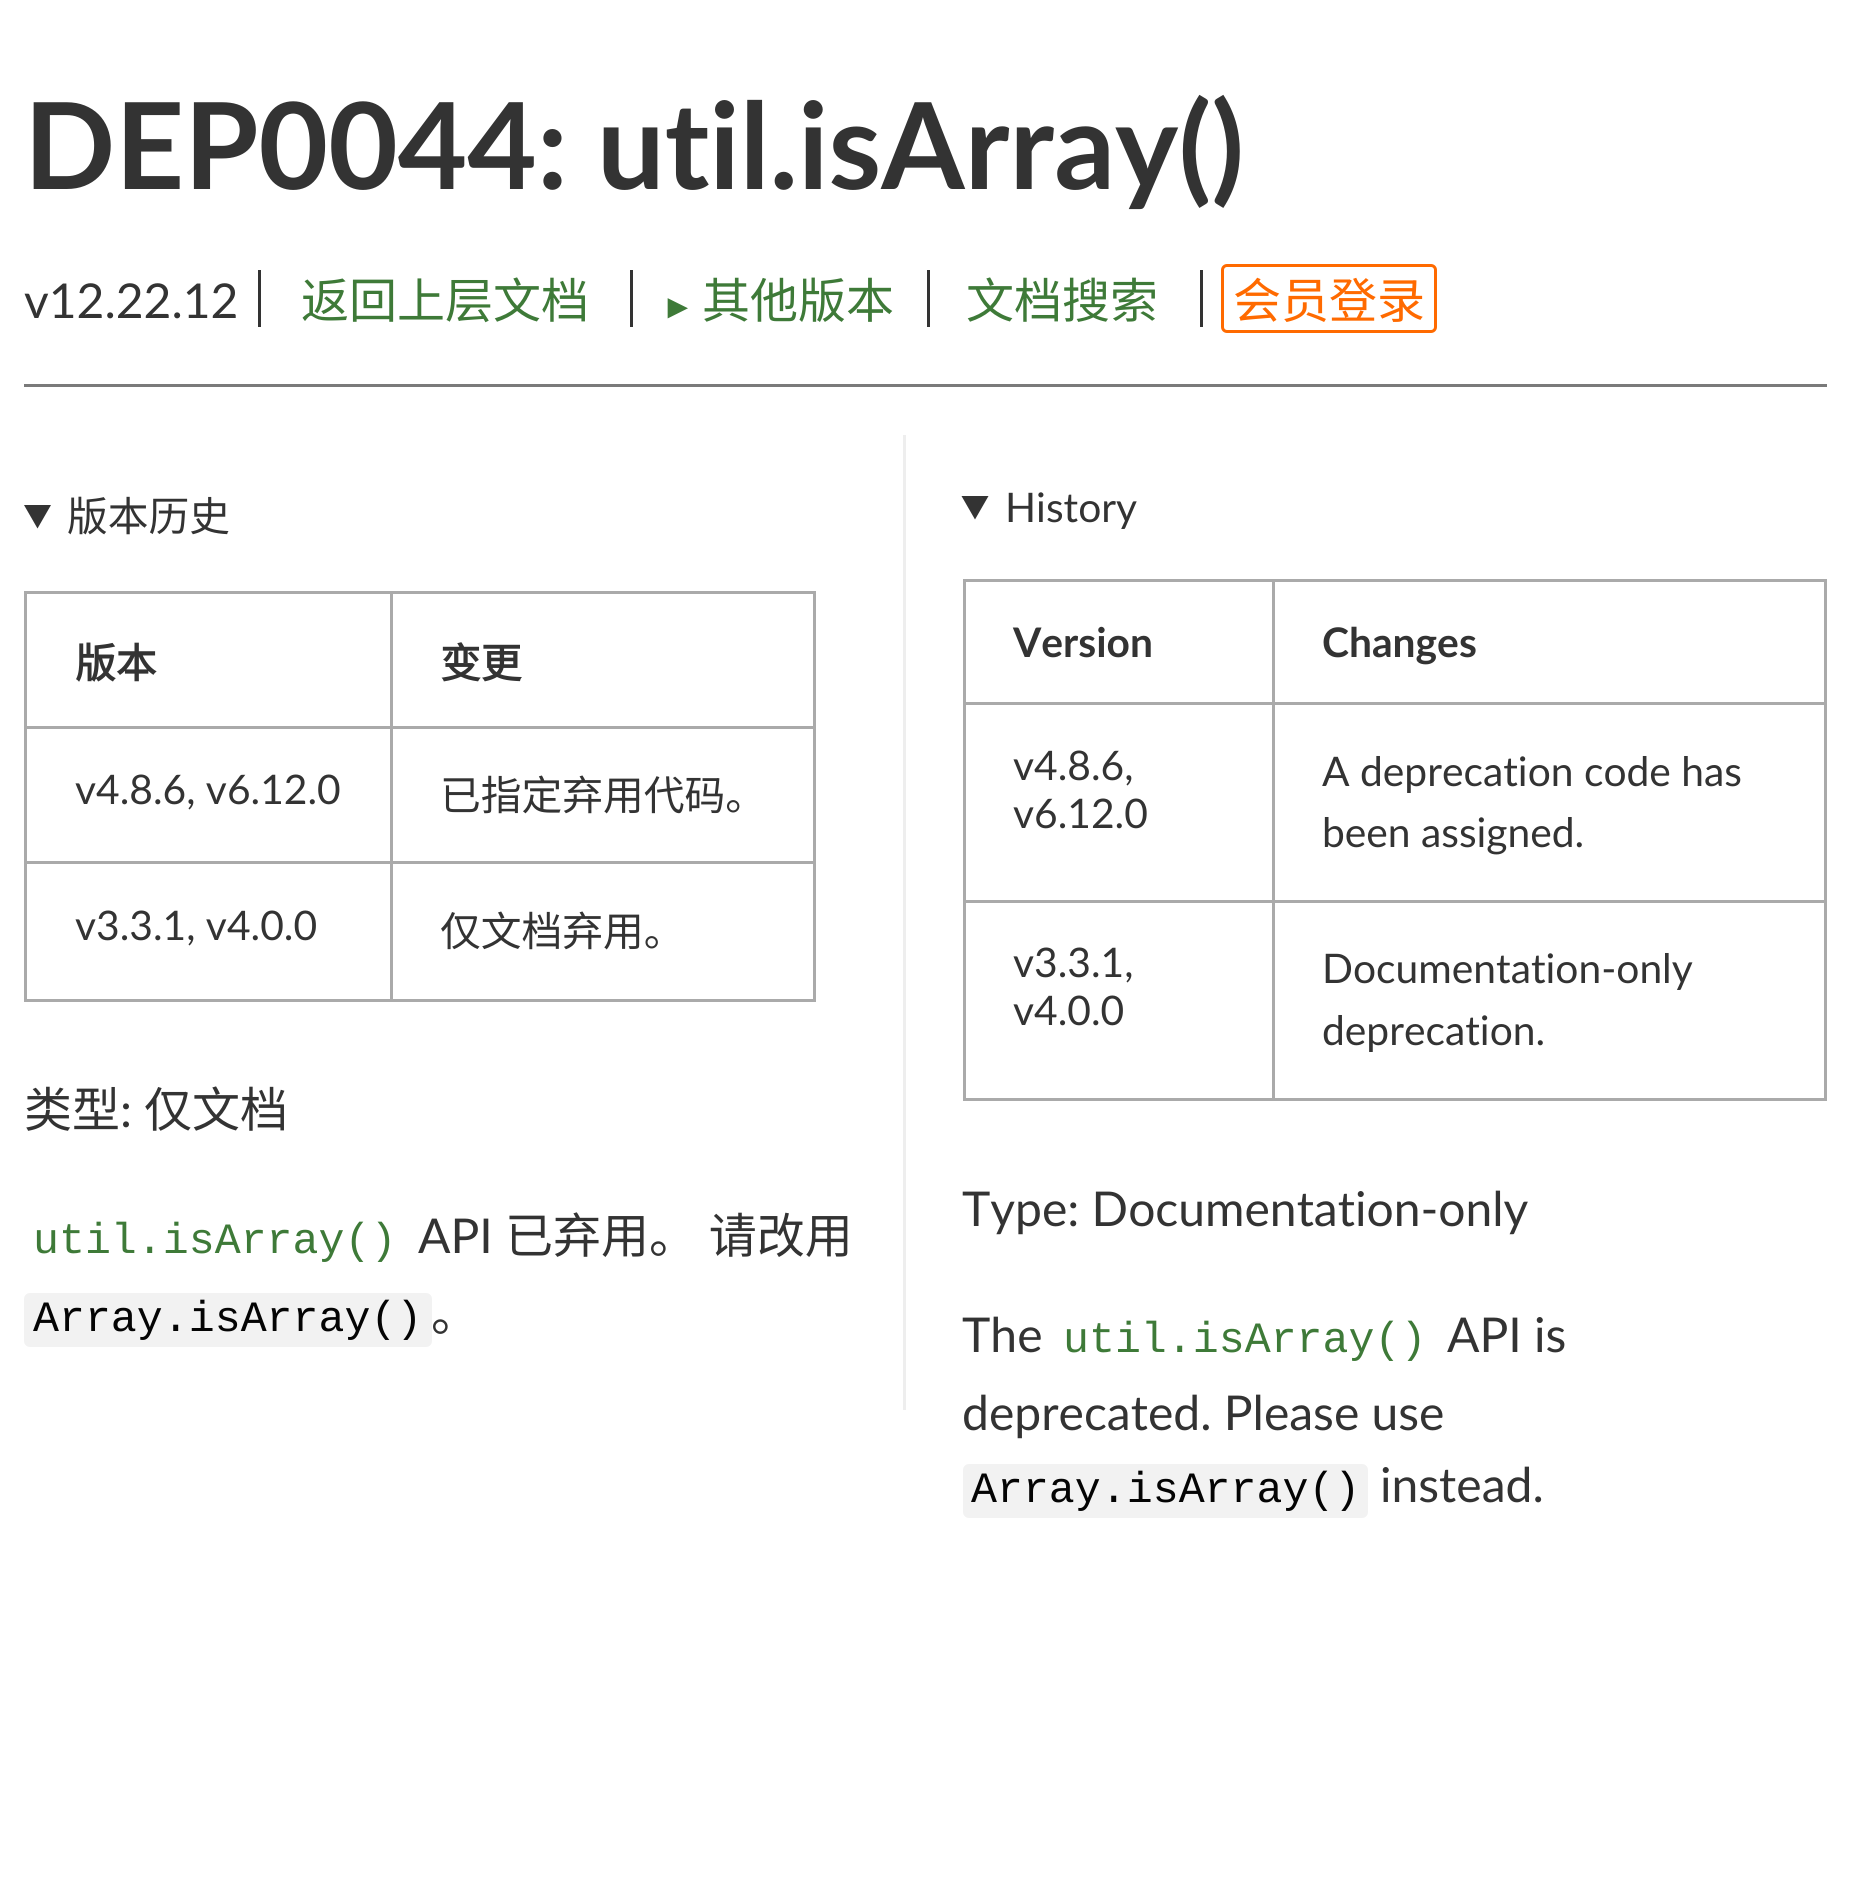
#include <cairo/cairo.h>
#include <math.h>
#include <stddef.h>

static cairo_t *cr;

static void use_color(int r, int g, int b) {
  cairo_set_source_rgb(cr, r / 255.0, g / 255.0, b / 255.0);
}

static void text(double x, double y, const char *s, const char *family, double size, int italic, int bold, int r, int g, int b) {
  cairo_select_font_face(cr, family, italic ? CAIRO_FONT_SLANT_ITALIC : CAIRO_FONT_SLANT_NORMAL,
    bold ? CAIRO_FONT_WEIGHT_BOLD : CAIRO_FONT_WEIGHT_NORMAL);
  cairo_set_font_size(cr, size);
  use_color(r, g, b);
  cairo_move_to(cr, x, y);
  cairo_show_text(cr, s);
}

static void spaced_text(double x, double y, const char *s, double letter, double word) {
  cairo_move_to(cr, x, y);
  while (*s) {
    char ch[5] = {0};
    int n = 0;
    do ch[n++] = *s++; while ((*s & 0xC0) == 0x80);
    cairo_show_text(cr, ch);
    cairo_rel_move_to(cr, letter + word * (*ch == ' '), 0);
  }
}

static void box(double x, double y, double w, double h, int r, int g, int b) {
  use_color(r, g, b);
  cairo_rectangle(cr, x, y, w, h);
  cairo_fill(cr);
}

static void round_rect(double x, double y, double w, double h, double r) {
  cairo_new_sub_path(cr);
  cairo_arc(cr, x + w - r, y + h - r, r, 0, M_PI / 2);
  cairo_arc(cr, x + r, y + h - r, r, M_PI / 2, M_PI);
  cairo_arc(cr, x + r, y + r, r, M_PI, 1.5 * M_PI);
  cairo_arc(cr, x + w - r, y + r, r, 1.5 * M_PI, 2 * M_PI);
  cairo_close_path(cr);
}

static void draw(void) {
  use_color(255, 255, 255);
  cairo_paint(cr);
  box(258, 270, 3, 57, 51, 51, 51);
  box(630, 270, 3, 57, 51, 51, 51);
  box(927, 270, 3, 57, 51, 51, 51);
  box(1200, 270, 3, 57, 51, 51, 51);
  round_rect(1222.5, 265.5, 213, 66, 4.5);
  use_color(255, 106, 0);
  cairo_set_line_width(cr, 3);
  cairo_stroke(cr);
  box(24, 384, 1803, 3, 122, 122, 122);
  box(903, 435, 3, 975, 238, 238, 238);
  use_color(51, 51, 51);
  cairo_new_path(cr);
  cairo_move_to(cr, 24, 505);
  cairo_line_to(cr, 51, 505);
  cairo_line_to(cr, 37.5, 528.5);
  cairo_close_path(cr);
  cairo_fill(cr);
  box(390, 591, 426, 3, 170, 170, 170);
  box(390, 726, 426, 3, 170, 170, 170);
  box(390, 861, 426, 3, 170, 170, 170);
  box(813, 861, 3, 141, 170, 170, 170);
  box(390, 999, 426, 3, 170, 170, 170);
  box(390, 861, 3, 141, 170, 170, 170);
  box(24, 861, 369, 3, 170, 170, 170);
  box(390, 726, 3, 138, 170, 170, 170);
  box(24, 726, 369, 3, 170, 170, 170);
  box(390, 591, 3, 138, 170, 170, 170);
  box(24, 591, 369, 3, 170, 170, 170);
  box(24, 999, 369, 3, 170, 170, 170);
  box(24, 861, 3, 141, 170, 170, 170);
  box(24, 726, 3, 138, 170, 170, 170);
  box(24, 591, 3, 138, 170, 170, 170);
  box(813, 726, 3, 138, 170, 170, 170);
  box(813, 591, 3, 138, 170, 170, 170);
  use_color(242, 242, 242);
  round_rect(24, 1293, 408, 54, 6);
  cairo_fill(cr);
  use_color(51, 51, 51);
  cairo_new_path(cr);
  cairo_move_to(cr, 961.5, 496);
  cairo_line_to(cr, 988.5, 496);
  cairo_line_to(cr, 975, 519.5);
  cairo_close_path(cr);
  cairo_fill(cr);
  box(1272, 579, 555, 3, 170, 170, 170);
  box(1272, 702, 555, 3, 170, 170, 170);
  box(1272, 900, 555, 3, 170, 170, 170);
  box(1824, 900, 3, 201, 170, 170, 170);
  box(1272, 1098, 555, 3, 170, 170, 170);
  box(1272, 900, 3, 201, 170, 170, 170);
  box(963, 900, 312, 3, 170, 170, 170);
  box(1272, 702, 3, 201, 170, 170, 170);
  box(963, 702, 312, 3, 170, 170, 170);
  box(1272, 579, 3, 126, 170, 170, 170);
  box(963, 579, 312, 3, 170, 170, 170);
  box(963, 1098, 312, 3, 170, 170, 170);
  box(963, 900, 3, 201, 170, 170, 170);
  box(963, 702, 3, 201, 170, 170, 170);
  box(963, 579, 3, 126, 170, 170, 170);
  box(1824, 702, 3, 201, 170, 170, 170);
  box(1824, 579, 3, 126, 170, 170, 170);
  use_color(242, 242, 242);
  round_rect(963, 1464, 405, 54, 6);
  cairo_fill(cr);
  text(24, 189, "DEP0044: util.isArray()", "Lato", 120, 0, 1, 51, 51, 51);
  text(24, 318, "v12.22.12", "Lato", 48, 0, 0, 51, 51, 51);
  text(301, 318, "返回上层文档", "Noto Sans CJK SC", 48, 0, 0, 62, 122, 56);
  text(661, 318, "►", "Liberation Sans", 34, 0, 0, 62, 122, 56);
  text(702, 318, "其他版本", "Noto Sans CJK SC", 48, 0, 0, 62, 122, 56);
  text(966, 318, "文档搜索", "Noto Sans CJK SC", 48, 0, 0, 62, 122, 56);
  text(1233, 318, "会员登录", "Noto Sans CJK SC", 48, 0, 0, 255, 106, 0);
  text(67, 531, "版本历史", "Noto Sans CJK SC", 40.75, 0, 0, 51, 51, 51);
  text(75, 678, "版本", "Noto Sans CJK SC", 40.75, 0, 1, 51, 51, 51);
  text(440, 678, "变更", "Noto Sans CJK SC", 40.75, 0, 1, 51, 51, 51);
  text(75, 804, "v4.8.6, v6.12.0", "Lato", 40.75, 0, 0, 51, 51, 51);
  text(440, 810, "已指定弃用代码。", "Noto Sans CJK SC", 40.75, 0, 0, 51, 51, 51);
  text(75, 940, "v3.3.1, v4.0.0", "Lato", 40.75, 0, 0, 51, 51, 51);
  text(440, 946, "仅文档弃用。", "Noto Sans CJK SC", 40.75, 0, 0, 51, 51, 51);
  text(24, 1127, "类型", "Noto Sans CJK SC", 48, 0, 0, 51, 51, 51);
  text(120, 1127, ":", "Lato", 48, 0, 0, 51, 51, 51);
  text(144, 1127, "仅文档", "Noto Sans CJK SC", 48, 0, 0, 51, 51, 51);
  text(33, 1253, "util.isArray()", "Liberation Mono", 43.25, 0, 0, 62, 122, 56);
  text(418, 1253, "API", "Lato", 48, 0, 0, 51, 51, 51);
  cairo_select_font_face(cr, "Noto Sans CJK SC", CAIRO_FONT_SLANT_NORMAL, CAIRO_FONT_WEIGHT_NORMAL);
  spaced_text(505, 1253, "已弃用。 请改用", 0, 1);
  text(33, 1331, "Array.isArray()", "Liberation Mono", 43.25, 0, 0, 4, 4, 4);
  text(431, 1331, "。", "Noto Sans CJK SC", 48, 0, 0, 51, 51, 51);
  text(1005, 522, "History", "Lato", 40.75, 0, 0, 51, 51, 51);
  text(1013, 657, "Version", "Lato", 40.75, 0, 1, 51, 51, 51);
  text(1322, 657, "Changes", "Lato", 40.75, 0, 1, 51, 51, 51);
  text(1013, 780, "v4.8.6,", "Lato", 40.75, 0, 0, 51, 51, 51);
  text(1013, 828, "v6.12.0", "Lato", 40.75, 0, 0, 51, 51, 51);
  text(1322, 786, "A deprecation code has", "Lato", 40.75, 0, 0, 51, 51, 51);
  text(1322, 847, "been assigned.", "Lato", 40.75, 0, 0, 51, 51, 51);
  text(1013, 977, "v3.3.1,", "Lato", 40.75, 0, 0, 51, 51, 51);
  text(1013, 1025, "v4.0.0", "Lato", 40.75, 0, 0, 51, 51, 51);
  text(1322, 983, "Documentation-only", "Lato", 40.75, 0, 0, 51, 51, 51);
  text(1322, 1045, "deprecation.", "Lato", 40.75, 0, 0, 51, 51, 51);
  text(962, 1226, "Type: Documentation-only", "Lato", 48, 0, 0, 51, 51, 51);
  text(962, 1352, "The", "Lato", 48, 0, 0, 51, 51, 51);
  text(1063, 1352, "util.isArray()", "Liberation Mono", 43.25, 0, 0, 62, 122, 56);
  text(1447, 1352, "API is", "Lato", 48, 0, 0, 51, 51, 51);
  text(962, 1430, "deprecated. Please use", "Lato", 48, 0, 0, 51, 51, 51);
  text(971, 1502, "Array.isArray()", "Liberation Mono", 43.25, 0, 0, 4, 4, 4);
  text(1380, 1502, "instead.", "Lato", 48, 0, 0, 51, 51, 51);
}

int main(void) {
  cairo_surface_t *surface = cairo_image_surface_create(CAIRO_FORMAT_RGB24, 1851, 1878);
  cr = cairo_create(surface);
  cairo_font_options_t *options = cairo_font_options_create();
  cairo_font_options_set_hint_metrics(options, CAIRO_HINT_METRICS_OFF);
  cairo_font_options_set_hint_style(options, CAIRO_HINT_STYLE_NONE);
  cairo_set_font_options(cr, options);
  cairo_set_miter_limit(cr, 4);
  draw();
  cairo_surface_write_to_png(surface, "out.png");
  cairo_font_options_destroy(options);
  cairo_destroy(cr);
  cairo_surface_destroy(surface);
  return 0;
}
